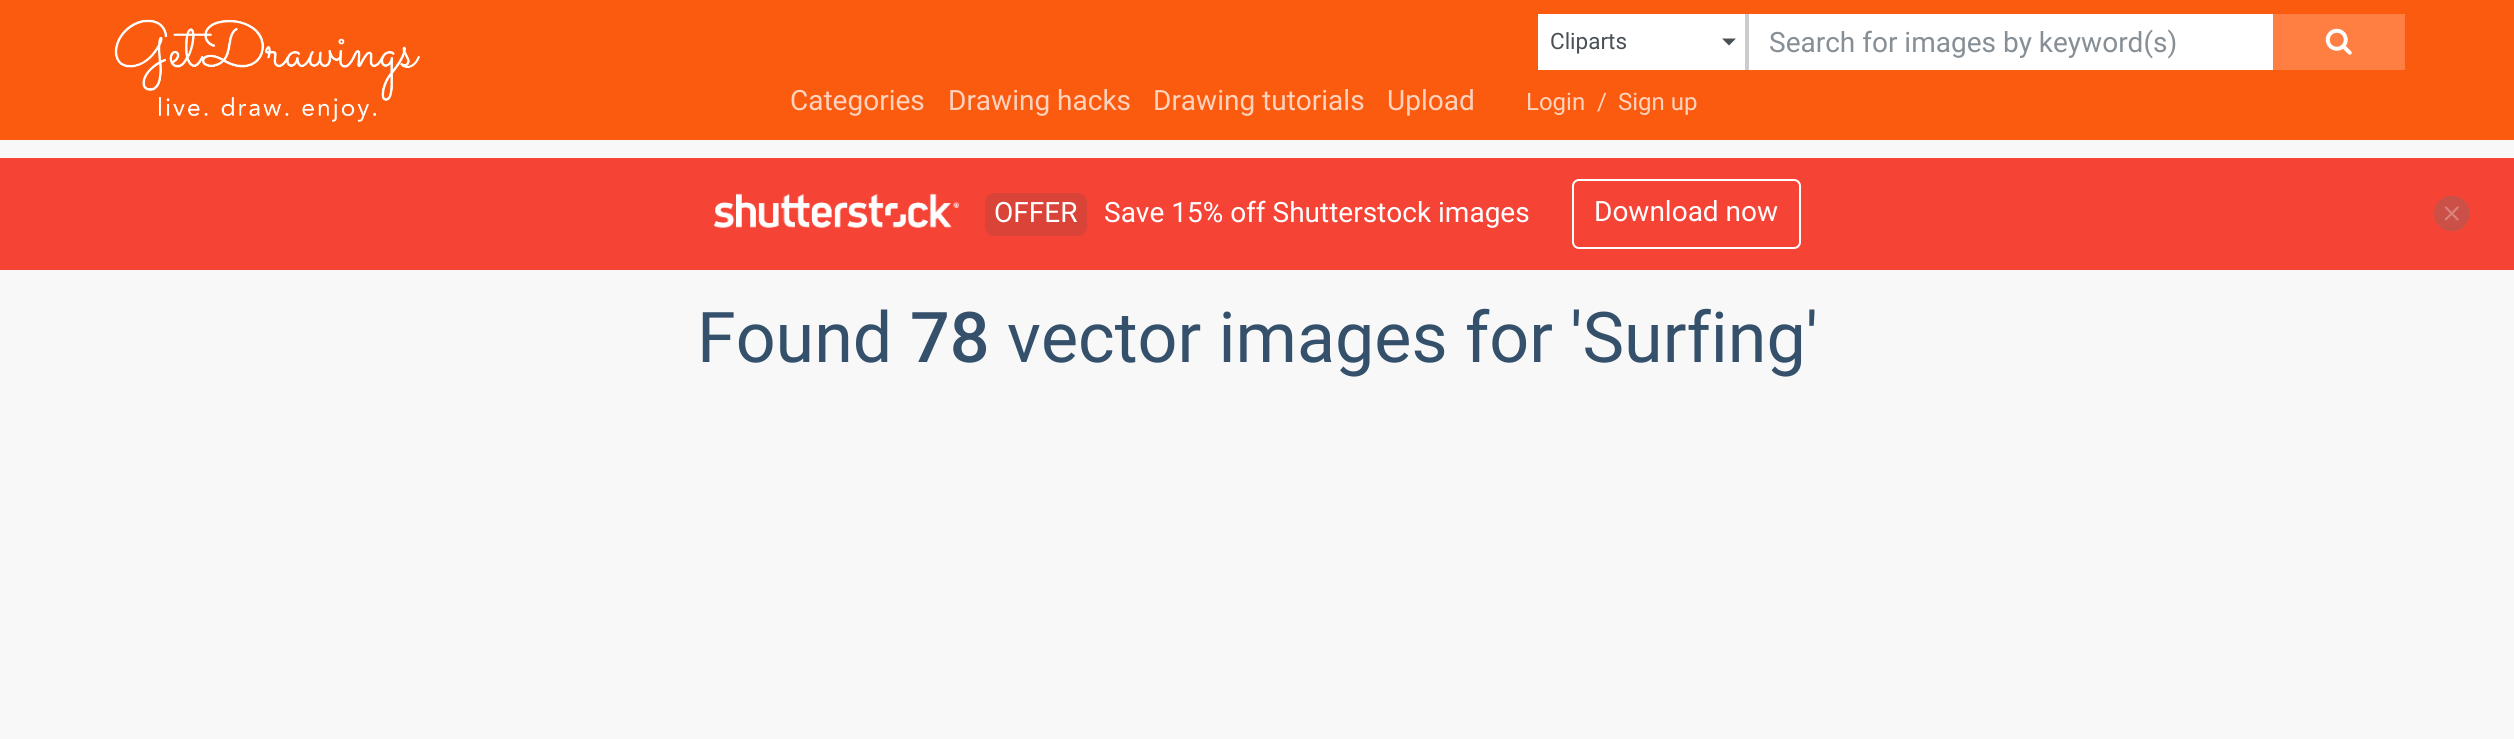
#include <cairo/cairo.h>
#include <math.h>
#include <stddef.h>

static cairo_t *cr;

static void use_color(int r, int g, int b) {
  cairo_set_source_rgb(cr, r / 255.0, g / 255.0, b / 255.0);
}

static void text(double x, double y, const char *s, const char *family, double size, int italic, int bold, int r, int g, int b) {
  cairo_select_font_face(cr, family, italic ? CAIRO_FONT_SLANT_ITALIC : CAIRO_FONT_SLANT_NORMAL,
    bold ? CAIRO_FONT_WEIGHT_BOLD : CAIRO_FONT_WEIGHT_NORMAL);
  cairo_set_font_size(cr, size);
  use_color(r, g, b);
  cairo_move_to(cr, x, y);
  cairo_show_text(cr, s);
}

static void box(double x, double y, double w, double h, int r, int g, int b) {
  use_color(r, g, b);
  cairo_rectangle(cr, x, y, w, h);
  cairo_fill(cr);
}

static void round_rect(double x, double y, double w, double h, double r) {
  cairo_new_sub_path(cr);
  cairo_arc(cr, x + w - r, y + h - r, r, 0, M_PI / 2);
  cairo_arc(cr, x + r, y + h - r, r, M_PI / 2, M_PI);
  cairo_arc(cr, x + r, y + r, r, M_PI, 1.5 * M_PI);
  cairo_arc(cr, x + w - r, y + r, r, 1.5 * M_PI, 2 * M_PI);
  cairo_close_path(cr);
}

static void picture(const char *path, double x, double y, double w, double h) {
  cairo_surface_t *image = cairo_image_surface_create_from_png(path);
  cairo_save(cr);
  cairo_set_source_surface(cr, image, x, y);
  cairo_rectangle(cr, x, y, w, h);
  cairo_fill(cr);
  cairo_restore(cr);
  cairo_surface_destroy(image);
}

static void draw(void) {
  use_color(248, 248, 248);
  cairo_paint(cr);
  box(0, 0, 2514, 140, 250, 91, 15);
  picture("img_01.png", 114, 19, 306, 103);
  box(1538, 14, 207, 56, 255, 255, 255);
  box(1745, 14, 4, 56, 204, 204, 204);
  use_color(73, 80, 86);
  cairo_new_path(cr);
  cairo_move_to(cr, 1722, 38.5);
  cairo_line_to(cr, 1736, 38.5);
  cairo_line_to(cr, 1729, 45.5);
  cairo_close_path(cr);
  cairo_fill(cr);
  box(1749, 14, 524, 56, 255, 255, 255);
  box(2273, 14, 132, 56, 255, 126, 65);
  picture("img_02.png", 2325, 28, 27, 27);
  box(0, 158, 2514, 112, 245, 67, 54);
  picture("img_03.png", 713, 193, 246, 35);
  use_color(218, 67, 56);
  round_rect(985, 193, 102, 43, 9);
  cairo_fill(cr);
  round_rect(1573, 180, 227, 68, 6);
  use_color(255, 255, 255);
  cairo_stroke(cr);
  picture("img_04.png", 2434, 196, 36, 35);
  text(1550, 49, "Cliparts", "Roboto", 22.5, 0, 0, 73, 80, 87);
  text(1769, 52, "Search for images by keyword(s)", "Roboto", 28, 0, 0, 134, 142, 150);
  text(790, 110, "Categories", "Roboto", 28, 0, 0, 255, 211, 190);
  text(948, 110, "Drawing hacks", "Roboto", 28, 0, 0, 255, 211, 190);
  text(1153, 110, "Drawing tutorials", "Roboto", 28, 0, 0, 255, 211, 190);
  text(1387, 110, "Upload", "Roboto", 28, 0, 0, 255, 211, 190);
  text(1526, 110, "Login", "Roboto", 24, 0, 0, 255, 211, 190);
  text(1597, 110, "/", "Roboto", 24, 0, 0, 255, 211, 190);
  text(1618, 110, "Sign up", "Roboto", 24, 0, 0, 255, 211, 190);
  text(994, 222, "OFFER", "Roboto", 28, 0, 0, 255, 255, 255);
  text(1104, 222, "Save 15% off Shutterstock images", "Roboto", 28, 0, 0, 255, 255, 255);
  text(1594, 221, "Download now", "Roboto", 28, 0, 0, 255, 255, 255);
  text(697, 362, "Found", "Roboto", 70, 0, 0, 52, 80, 107);
  text(910, 362, "78", "Roboto Medium", 70, 0, 0, 52, 80, 107);
  text(1007, 362, "vector images for 'Surfing'", "Roboto", 70, 0, 0, 52, 80, 107);
}

int main(void) {
  cairo_surface_t *surface = cairo_image_surface_create(CAIRO_FORMAT_RGB24, 2514, 739);
  cr = cairo_create(surface);
  cairo_font_options_t *options = cairo_font_options_create();
  cairo_font_options_set_hint_metrics(options, CAIRO_HINT_METRICS_OFF);
  cairo_font_options_set_hint_style(options, CAIRO_HINT_STYLE_NONE);
  cairo_set_font_options(cr, options);
  cairo_set_miter_limit(cr, 4);
  draw();
  cairo_surface_write_to_png(surface, "out.png");
  cairo_font_options_destroy(options);
  cairo_destroy(cr);
  cairo_surface_destroy(surface);
  return 0;
}
